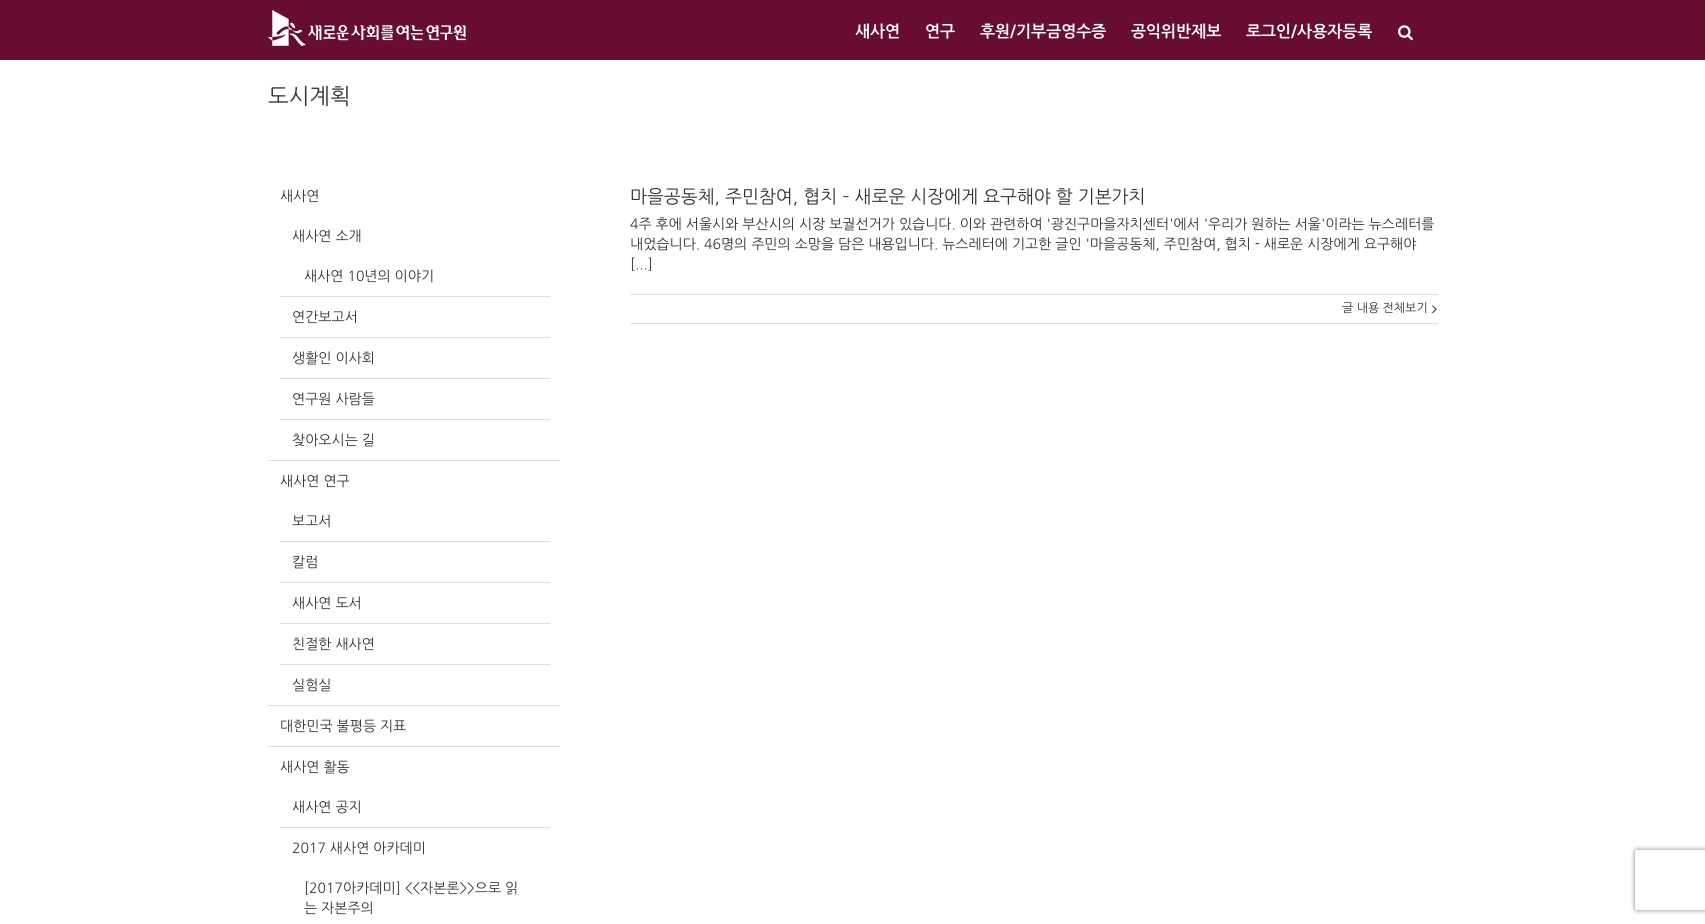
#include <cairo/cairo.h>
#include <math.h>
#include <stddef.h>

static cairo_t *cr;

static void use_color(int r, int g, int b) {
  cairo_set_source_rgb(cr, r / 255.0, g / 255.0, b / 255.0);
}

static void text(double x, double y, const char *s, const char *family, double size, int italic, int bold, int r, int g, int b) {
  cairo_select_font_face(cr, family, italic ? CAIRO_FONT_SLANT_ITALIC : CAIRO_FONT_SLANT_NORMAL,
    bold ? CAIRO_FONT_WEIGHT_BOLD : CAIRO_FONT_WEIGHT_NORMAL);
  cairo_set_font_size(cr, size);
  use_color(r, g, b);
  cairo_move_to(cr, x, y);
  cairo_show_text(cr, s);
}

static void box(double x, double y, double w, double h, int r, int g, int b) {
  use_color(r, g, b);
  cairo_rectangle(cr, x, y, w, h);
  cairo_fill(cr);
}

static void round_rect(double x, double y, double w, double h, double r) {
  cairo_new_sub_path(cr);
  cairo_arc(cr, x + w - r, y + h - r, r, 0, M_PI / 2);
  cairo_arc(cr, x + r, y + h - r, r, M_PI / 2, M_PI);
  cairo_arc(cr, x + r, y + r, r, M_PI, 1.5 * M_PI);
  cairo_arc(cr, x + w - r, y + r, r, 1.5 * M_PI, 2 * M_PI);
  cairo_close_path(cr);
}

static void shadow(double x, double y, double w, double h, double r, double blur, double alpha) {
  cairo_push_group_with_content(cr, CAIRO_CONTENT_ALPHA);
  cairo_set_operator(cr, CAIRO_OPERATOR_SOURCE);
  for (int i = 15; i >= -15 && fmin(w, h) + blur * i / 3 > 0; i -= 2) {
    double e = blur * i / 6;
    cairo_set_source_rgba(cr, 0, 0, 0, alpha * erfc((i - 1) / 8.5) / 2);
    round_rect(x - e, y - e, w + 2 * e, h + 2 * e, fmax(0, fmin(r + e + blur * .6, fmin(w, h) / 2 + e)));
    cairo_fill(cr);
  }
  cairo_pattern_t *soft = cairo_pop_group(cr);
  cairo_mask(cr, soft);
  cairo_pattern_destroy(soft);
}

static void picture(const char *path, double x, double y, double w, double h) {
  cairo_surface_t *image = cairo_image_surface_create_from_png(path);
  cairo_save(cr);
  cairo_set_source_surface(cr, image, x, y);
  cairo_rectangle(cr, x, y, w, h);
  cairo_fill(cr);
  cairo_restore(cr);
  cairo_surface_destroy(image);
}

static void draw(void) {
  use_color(255, 255, 255);
  cairo_paint(cr);
  box(0, 0, 1705, 60, 103, 14, 48);
  picture("img_01.png", 268, 10, 198, 36);
  picture("img_02.png", 1398, 25, 15, 16);
  box(268, 460, 292, 1, 224, 222, 222);
  box(280, 296, 270, 1, 224, 222, 222);
  box(280, 337, 270, 1, 224, 222, 222);
  box(280, 378, 270, 1, 224, 222, 222);
  box(280, 419, 270, 1, 224, 222, 222);
  box(268, 705, 292, 1, 224, 222, 222);
  box(280, 541, 270, 1, 224, 222, 222);
  box(280, 582, 270, 1, 224, 222, 222);
  box(280, 623, 270, 1, 224, 222, 222);
  box(280, 664, 270, 1, 224, 222, 222);
  box(268, 746, 292, 1, 224, 222, 222);
  box(280, 827, 270, 1, 224, 222, 222);
  box(630, 294, 808, 1, 224, 222, 222);
  box(630, 323, 808, 1, 224, 222, 222);
  picture("img_03.png", 1432, 305, 5, 9);
  cairo_save(cr);
  cairo_set_fill_rule(cr, CAIRO_FILL_RULE_EVEN_ODD);
  cairo_new_path(cr);
  cairo_move_to(cr, 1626, 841);
  cairo_line_to(cr, 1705, 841);
  cairo_line_to(cr, 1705, 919);
  cairo_line_to(cr, 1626, 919);
  cairo_close_path(cr);
  cairo_move_to(cr, 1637, 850);
  cairo_line_to(cr, 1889, 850);
  cairo_curve_to(cr, 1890, 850, 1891, 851, 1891, 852);
  cairo_line_to(cr, 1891, 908);
  cairo_curve_to(cr, 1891, 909, 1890, 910, 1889, 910);
  cairo_line_to(cr, 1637, 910);
  cairo_curve_to(cr, 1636, 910, 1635, 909, 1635, 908);
  cairo_line_to(cr, 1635, 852);
  cairo_curve_to(cr, 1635, 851, 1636, 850, 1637, 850);
  cairo_close_path(cr);
  cairo_clip(cr);
  use_color(128, 128, 128);
  shadow(1635, 850, 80, 60, 2, 2.5, 1);
  cairo_restore(cr);
  text(855, 37, "새사연", "NanumGothic", 16, 0, 1, 255, 255, 255);
  text(925, 37, "연구", "NanumGothic", 16, 0, 1, 255, 255, 255);
  text(980, 37, "후원/기부금영수증", "NanumGothic", 16, 0, 1, 255, 255, 255);
  text(1131, 37, "공익위반제보", "NanumGothic", 16, 0, 1, 255, 255, 255);
  text(1246, 37, "로그인/사용자등록", "NanumGothic", 16, 0, 1, 255, 255, 255);
  text(268, 104, "도시계획", "NanumGothic", 22, 0, 0, 51, 51, 51);
  text(280, 201, "새사연", "NanumGothic", 14, 0, 0, 51, 51, 51);
  text(292, 241, "새사연 소개", "NanumGothic", 14, 0, 0, 51, 51, 51);
  text(304, 281, "새사연 10년의 이야기", "NanumGothic", 14, 0, 0, 51, 51, 51);
  text(292, 322, "연간보고서", "NanumGothic", 14, 0, 0, 51, 51, 51);
  text(292, 363, "생활인 이사회", "NanumGothic", 14, 0, 0, 51, 51, 51);
  text(292, 404, "연구원 사람들", "NanumGothic", 14, 0, 0, 51, 51, 51);
  text(292, 445, "찾아오시는 길", "NanumGothic", 14, 0, 0, 51, 51, 51);
  text(280, 486, "새사연 연구", "NanumGothic", 14, 0, 0, 51, 51, 51);
  text(292, 526, "보고서", "NanumGothic", 14, 0, 0, 51, 51, 51);
  text(292, 567, "칼럼", "NanumGothic", 14, 0, 0, 51, 51, 51);
  text(292, 608, "새사연 도서", "NanumGothic", 14, 0, 0, 51, 51, 51);
  text(292, 649, "친절한 새사연", "NanumGothic", 14, 0, 0, 51, 51, 51);
  text(292, 690, "실험실", "NanumGothic", 14, 0, 0, 51, 51, 51);
  text(280, 731, "대한민국 불평등 지표", "NanumGothic", 14, 0, 0, 51, 51, 51);
  text(280, 772, "새사연 활동", "NanumGothic", 14, 0, 0, 51, 51, 51);
  text(292, 812, "새사연 공지", "NanumGothic", 14, 0, 0, 51, 51, 51);
  text(292, 853, "2017 새사연 아카데미", "NanumGothic", 14, 0, 0, 51, 51, 51);
  text(304, 893, "[2017아카데미] <<자본론>>으로 읽", "NanumGothic", 14, 0, 0, 51, 51, 51);
  text(304, 913, "는 자본주의", "NanumGothic", 14, 0, 0, 51, 51, 51);
  text(630, 203, "마을공동체, 주민참여, 협치 – 새로운 시장에게 요구해야 할 기본가치", "NanumGothic", 18, 0, 0, 51, 51, 51);
  text(630, 229, "4주 후에 서울시와 부산시의 시장 보궐선거가 있습니다. 이와 관련하여 '광진구마을자치센터'에서 '우리가 원하는 서울'이라는 뉴스레터를", "NanumGothic", 14, 0, 0, 51, 51, 51);
  text(630, 249, "내었습니다. 46명의 주민의 소망을 담은 내용입니다. 뉴스레터에 기고한 글인 '마을공동체, 주민참여, 협치 - 새로운 시장에게 요구해야", "NanumGothic", 14, 0, 0, 51, 51, 51);
  text(630, 269, "[...]", "NanumGothic", 14, 0, 0, 51, 51, 51);
  text(1342, 312, "글 내용 전체보기", "NanumGothic", 12, 0, 0, 51, 51, 51);
}

int main(void) {
  cairo_surface_t *surface = cairo_image_surface_create(CAIRO_FORMAT_RGB24, 1705, 924);
  cr = cairo_create(surface);
  cairo_font_options_t *options = cairo_font_options_create();
  cairo_font_options_set_hint_metrics(options, CAIRO_HINT_METRICS_OFF);
  cairo_font_options_set_hint_style(options, CAIRO_HINT_STYLE_NONE);
  cairo_set_font_options(cr, options);
  cairo_set_miter_limit(cr, 4);
  draw();
  cairo_surface_write_to_png(surface, "out.png");
  cairo_font_options_destroy(options);
  cairo_destroy(cr);
  cairo_surface_destroy(surface);
  return 0;
}
